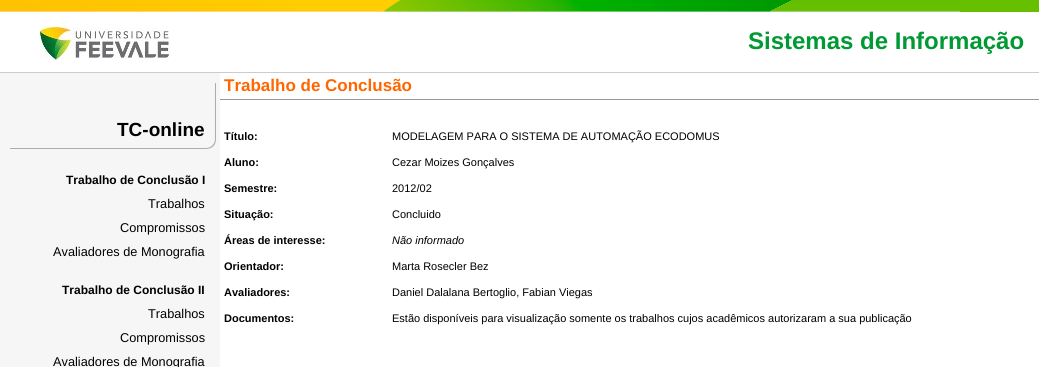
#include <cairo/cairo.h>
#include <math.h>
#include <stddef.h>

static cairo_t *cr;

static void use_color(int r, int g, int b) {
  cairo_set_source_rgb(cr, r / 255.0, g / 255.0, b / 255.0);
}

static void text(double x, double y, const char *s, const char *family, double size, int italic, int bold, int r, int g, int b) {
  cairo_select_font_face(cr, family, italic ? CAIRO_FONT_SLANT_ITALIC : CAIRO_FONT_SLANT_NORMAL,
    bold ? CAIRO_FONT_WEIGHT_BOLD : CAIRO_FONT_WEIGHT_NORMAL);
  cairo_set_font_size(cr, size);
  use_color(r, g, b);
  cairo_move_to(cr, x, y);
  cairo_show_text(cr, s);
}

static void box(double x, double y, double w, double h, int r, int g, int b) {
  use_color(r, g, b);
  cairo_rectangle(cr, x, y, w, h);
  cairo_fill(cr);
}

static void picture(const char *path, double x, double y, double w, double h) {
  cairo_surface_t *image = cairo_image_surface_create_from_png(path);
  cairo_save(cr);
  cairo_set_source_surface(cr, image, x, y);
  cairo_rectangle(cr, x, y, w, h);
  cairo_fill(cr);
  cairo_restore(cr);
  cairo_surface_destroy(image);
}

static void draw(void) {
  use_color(255, 255, 255);
  cairo_paint(cr);
  box(960, 0, 79, 12, 102, 192, 0);
  picture("img_01.png", 0, 0, 960, 12);
  box(0, 72, 1039, 1, 204, 204, 204);
  picture("img_02.png", 40, 27, 129, 33);
  box(0, 73, 220, 294, 246, 246, 246);
  use_color(172, 172, 172);
  cairo_set_fill_rule(cr, CAIRO_FILL_RULE_EVEN_ODD);
  cairo_new_path(cr);
  cairo_move_to(cr, 10, 83);
  cairo_line_to(cr, 216, 83);
  cairo_line_to(cr, 216, 139);
  cairo_curve_to(cr, 216, 145, 212, 149, 206, 149);
  cairo_line_to(cr, 10, 149);
  cairo_close_path(cr);
  cairo_move_to(cr, 10, 83);
  cairo_line_to(cr, 215, 83);
  cairo_line_to(cr, 215, 139);
  cairo_curve_to(cr, 215, 144, 211, 148, 206, 148);
  cairo_line_to(cr, 10, 148);
  cairo_close_path(cr);
  cairo_fill(cr);
  box(220, 99, 819, 1, 153, 153, 153);
  text(748, 49, "Sistemas de Informação", "Liberation Sans", 24, 0, 1, 0, 153, 51);
  text(117, 136, "TC-online", "Liberation Sans", 19, 0, 1, 0, 0, 0);
  text(66, 184, "Trabalho de Conclusão I", "Liberation Sans", 12, 0, 1, 0, 0, 0);
  text(148, 208, "Trabalhos", "Liberation Sans", 12.75, 0, 0, 0, 0, 0);
  text(120, 232, "Compromissos", "Liberation Sans", 12.75, 0, 0, 0, 0, 0);
  text(53, 256, "Avaliadores de Monografia", "Liberation Sans", 12.75, 0, 0, 0, 0, 0);
  text(62, 294, "Trabalho de Conclusão II", "Liberation Sans", 12, 0, 1, 0, 0, 0);
  text(148, 318, "Trabalhos", "Liberation Sans", 12.75, 0, 0, 0, 0, 0);
  text(120, 342, "Compromissos", "Liberation Sans", 12.75, 0, 0, 0, 0, 0);
  text(53, 366, "Avaliadores de Monografia", "Liberation Sans", 12.75, 0, 0, 0, 0, 0);
  text(224, 91, "Trabalho de Conclusão", "Liberation Sans", 17, 0, 1, 255, 102, 0);
  text(224, 140, "Título:", "Liberation Sans", 11, 0, 1, 0, 0, 0);
  text(392, 140, "MODELAGEM PARA O SISTEMA DE AUTOMAÇÃO ECODOMUS", "Liberation Sans", 11, 0, 0, 0, 0, 0);
  text(224, 166, "Aluno:", "Liberation Sans", 11, 0, 1, 0, 0, 0);
  text(392, 166, "Cezar Moizes Gonçalves", "Liberation Sans", 11, 0, 0, 0, 0, 0);
  text(224, 192, "Semestre:", "Liberation Sans", 11, 0, 1, 0, 0, 0);
  text(392, 192, "2012/02", "Liberation Sans", 11, 0, 0, 0, 0, 0);
  text(224, 218, "Situação:", "Liberation Sans", 11, 0, 1, 0, 0, 0);
  text(392, 218, "Concluido", "Liberation Sans", 11, 0, 0, 0, 0, 0);
  text(224, 244, "Áreas de interesse:", "Liberation Sans", 11, 0, 1, 0, 0, 0);
  text(392, 244, "Não informado", "Liberation Sans", 11, 1, 0, 0, 0, 0);
  text(224, 270, "Orientador:", "Liberation Sans", 11, 0, 1, 0, 0, 0);
  text(392, 270, "Marta Rosecler Bez", "Liberation Sans", 11, 0, 0, 0, 0, 0);
  text(224, 296, "Avaliadores:", "Liberation Sans", 11, 0, 1, 0, 0, 0);
  text(392, 296, "Daniel Dalalana Bertoglio, Fabian Viegas", "Liberation Sans", 11, 0, 0, 0, 0, 0);
  text(224, 322, "Documentos:", "Liberation Sans", 11, 0, 1, 0, 0, 0);
  text(392, 322, "Estão disponíveis para visualização somente os trabalhos cujos acadêmicos autorizaram a sua publicação", "Liberation Sans", 11, 0, 0, 0, 0, 0);
}

int main(void) {
  cairo_surface_t *surface = cairo_image_surface_create(CAIRO_FORMAT_RGB24, 1039, 367);
  cr = cairo_create(surface);
  cairo_font_options_t *options = cairo_font_options_create();
  cairo_font_options_set_hint_metrics(options, CAIRO_HINT_METRICS_OFF);
  cairo_font_options_set_hint_style(options, CAIRO_HINT_STYLE_NONE);
  cairo_set_font_options(cr, options);
  cairo_set_miter_limit(cr, 4);
  draw();
  cairo_surface_write_to_png(surface, "out.png");
  cairo_font_options_destroy(options);
  cairo_destroy(cr);
  cairo_surface_destroy(surface);
  return 0;
}
